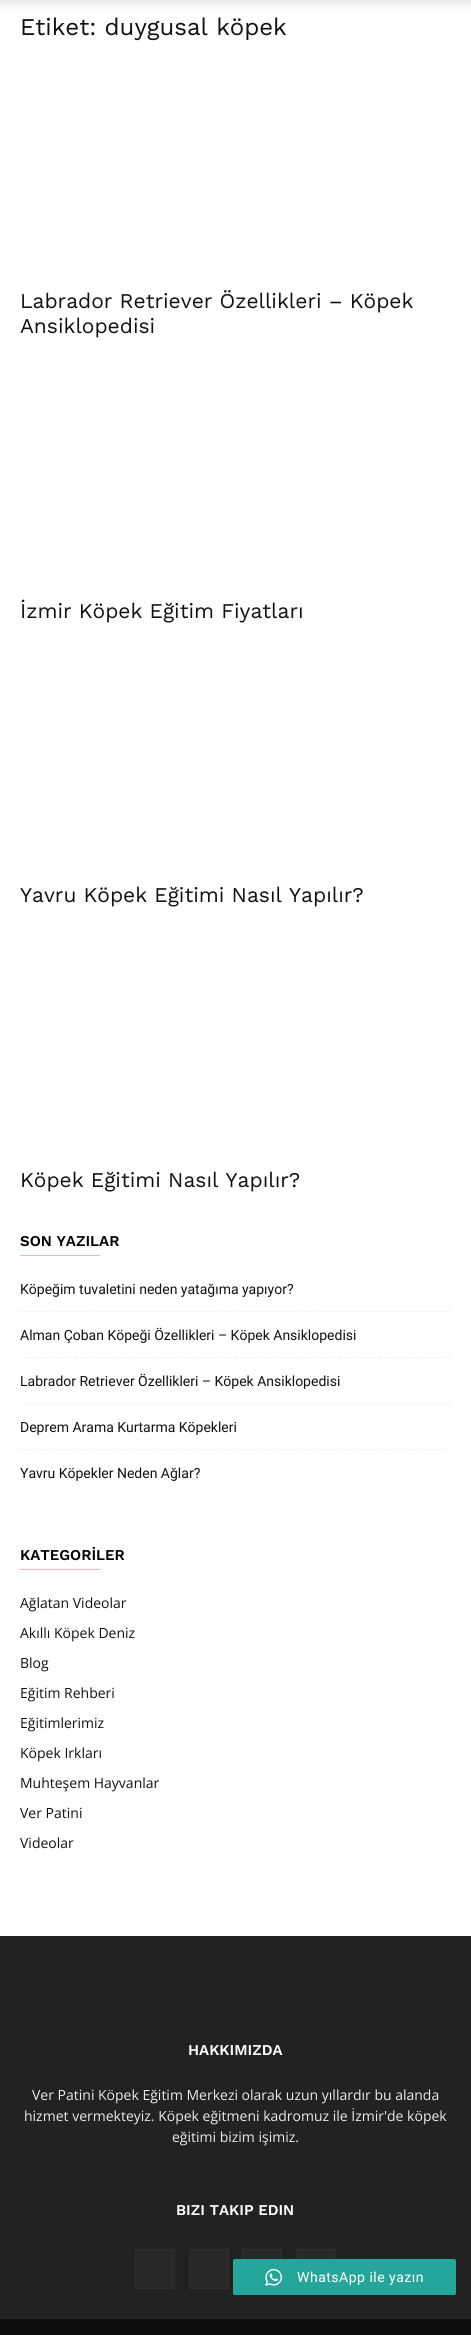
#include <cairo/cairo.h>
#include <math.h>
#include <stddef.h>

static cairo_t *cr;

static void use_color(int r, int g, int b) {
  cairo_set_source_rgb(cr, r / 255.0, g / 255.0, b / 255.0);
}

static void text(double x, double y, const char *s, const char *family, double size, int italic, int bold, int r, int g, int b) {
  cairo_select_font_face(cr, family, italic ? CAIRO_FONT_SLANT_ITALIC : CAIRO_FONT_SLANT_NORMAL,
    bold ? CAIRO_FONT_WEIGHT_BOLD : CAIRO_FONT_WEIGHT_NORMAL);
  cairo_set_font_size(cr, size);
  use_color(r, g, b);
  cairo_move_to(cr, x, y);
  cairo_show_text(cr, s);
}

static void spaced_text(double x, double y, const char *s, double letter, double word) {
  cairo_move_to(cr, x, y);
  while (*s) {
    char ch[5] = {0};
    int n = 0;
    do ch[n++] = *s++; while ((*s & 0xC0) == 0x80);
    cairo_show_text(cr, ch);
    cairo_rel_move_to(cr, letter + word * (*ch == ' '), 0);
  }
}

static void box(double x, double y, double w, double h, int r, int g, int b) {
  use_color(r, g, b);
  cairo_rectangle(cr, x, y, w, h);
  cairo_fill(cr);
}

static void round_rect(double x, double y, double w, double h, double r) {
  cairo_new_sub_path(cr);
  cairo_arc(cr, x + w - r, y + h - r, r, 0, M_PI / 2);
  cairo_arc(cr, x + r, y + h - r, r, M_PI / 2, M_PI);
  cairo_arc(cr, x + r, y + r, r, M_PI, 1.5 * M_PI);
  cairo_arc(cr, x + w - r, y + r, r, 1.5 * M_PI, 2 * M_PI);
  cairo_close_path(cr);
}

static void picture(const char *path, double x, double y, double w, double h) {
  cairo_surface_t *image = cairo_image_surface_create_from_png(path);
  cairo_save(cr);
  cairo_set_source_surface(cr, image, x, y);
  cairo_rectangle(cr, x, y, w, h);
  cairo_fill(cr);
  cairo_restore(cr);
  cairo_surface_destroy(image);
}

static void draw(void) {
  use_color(255, 255, 255);
  cairo_paint(cr);
  picture("img_01.png", 0, 0, 471, 9);
  box(20, 1255, 80, 1, 247, 180, 184);
  cairo_new_path(cr);
  cairo_move_to(cr, 20, 1311.5);
  cairo_line_to(cr, 451, 1311.5);
  use_color(241, 241, 241);
  cairo_set_line_width(cr, 1);
  cairo_set_dash(cr, (double[]){3, 1.98}, 2, 0);
  cairo_stroke(cr);
  cairo_new_path(cr);
  cairo_move_to(cr, 20, 1357.5);
  cairo_line_to(cr, 451, 1357.5);
  cairo_stroke(cr);
  cairo_new_path(cr);
  cairo_move_to(cr, 20, 1403.5);
  cairo_line_to(cr, 451, 1403.5);
  cairo_stroke(cr);
  cairo_new_path(cr);
  cairo_move_to(cr, 20, 1449.5);
  cairo_line_to(cr, 451, 1449.5);
  cairo_stroke(cr);
  box(20, 1569, 80, 1, 247, 180, 184);
  box(0, 1936, 471, 383, 34, 34, 34);
  use_color(41, 41, 41);
  cairo_rectangle(cr, 135.5, 2249.5, 39, 39);
  cairo_fill_preserve(cr);
  use_color(47, 47, 47);
  cairo_set_dash(cr, NULL, 0, 0);
  cairo_stroke(cr);
  use_color(41, 41, 41);
  cairo_rectangle(cr, 189.5, 2249.5, 39, 39);
  cairo_fill_preserve(cr);
  use_color(47, 47, 47);
  cairo_stroke(cr);
  box(243, 2250, 38, 9, 41, 41, 41);
  cairo_rectangle(cr, 242.5, 2249.5, 39, 39);
  use_color(47, 47, 47);
  cairo_stroke(cr);
  box(297, 2250, 38, 9, 41, 41, 41);
  cairo_rectangle(cr, 296.5, 2249.5, 39, 39);
  use_color(47, 47, 47);
  cairo_stroke(cr);
  box(0, 2319, 471, 16, 13, 13, 13);
  use_color(38, 166, 154);
  round_rect(233, 2259, 223, 36, 2);
  cairo_fill(cr);
  picture("img_02.png", 265, 2269, 17, 17);
  text(20, 35, "Etiket: duygusal köpek", "Work Sans", 24, 0, 0, 17, 17, 17);
  text(20, 308, "Labrador Retriever Özellikleri – Köpek", "Work Sans", 21, 0, 0, 17, 17, 17);
  text(20, 333, "Ansiklopedisi", "Work Sans", 21, 0, 0, 17, 17, 17);
  text(20, 618, "İzmir Köpek Eğitim Fiyatları", "Work Sans", 21, 0, 0, 17, 17, 17);
  text(20, 902, "Yavru Köpek Eğitimi Nasıl Yapılır?", "Work Sans", 21, 0, 0, 17, 17, 17);
  text(20, 1187, "Köpek Eğitimi Nasıl Yapılır?", "Work Sans", 21, 0, 0, 17, 17, 17);
  text(20, 1246, "SON YAZILAR", "Work Sans SemiBold", 15, 0, 0, 0, 0, 0);
  text(20, 1294, "Köpeğim tuvaletini neden yatağıma yapıyor?", "Roboto", 14, 0, 0, 17, 17, 17);
  text(20, 1340, "Alman Çoban Köpeği Özellikleri – Köpek Ansiklopedisi", "Roboto", 14, 0, 0, 17, 17, 17);
  text(20, 1386, "Labrador Retriever Özellikleri – Köpek Ansiklopedisi", "Roboto", 14, 0, 0, 17, 17, 17);
  text(20, 1432, "Deprem Arama Kurtarma Köpekleri", "Roboto", 14, 0, 0, 17, 17, 17);
  text(20, 1478, "Yavru Köpekler Neden Ağlar?", "Roboto", 14, 0, 0, 17, 17, 17);
  text(20, 1560, "KATEGORİLER", "Work Sans SemiBold", 15, 0, 0, 0, 0, 0);
  text(20, 1608, "Ağlatan Videolar", "Open Sans", 14, 0, 0, 17, 17, 17);
  text(20, 1638, "Akıllı Köpek Deniz", "Open Sans", 14, 0, 0, 17, 17, 17);
  text(20, 1668, "Blog", "Open Sans", 14, 0, 0, 17, 17, 17);
  text(20, 1698, "Eğitim Rehberi", "Open Sans", 14, 0, 0, 17, 17, 17);
  text(20, 1728, "Eğitimlerimiz", "Open Sans", 14, 0, 0, 17, 17, 17);
  text(20, 1758, "Köpek Irkları", "Open Sans", 14, 0, 0, 17, 17, 17);
  text(20, 1788, "Muhteşem Hayvanlar", "Open Sans", 14, 0, 0, 17, 17, 17);
  text(20, 1818, "Ver Patini", "Open Sans", 14, 0, 0, 17, 17, 17);
  text(20, 1848, "Videolar", "Open Sans", 14, 0, 0, 17, 17, 17);
  text(188, 2055, "HAKKIMIZDA", "Work Sans SemiBold", 15, 0, 0, 255, 255, 255);
  text(32, 2100, "Ver Patini Köpek Eğitim Merkezi olarak uzun yıllardır bu alanda", "Open Sans", 14, 0, 0, 234, 234, 234);
  text(24, 2121, "hizmet vermekteyiz. Köpek eğitmeni kadromuz ile İzmir'de köpek", "Open Sans", 14, 0, 0, 234, 234, 234);
  text(172, 2142, "eğitimi bizim işimiz.", "Open Sans", 14, 0, 0, 234, 234, 234);
  text(176, 2215, "BIZI TAKIP EDIN", "Work Sans SemiBold", 15, 0, 0, 255, 255, 255);
  cairo_select_font_face(cr, "Roboto", CAIRO_FONT_SLANT_NORMAL, CAIRO_FONT_WEIGHT_NORMAL);
  cairo_set_font_size(cr, 14);
  spaced_text(297, 2282, "WhatsApp ile yazın", 0.5, 0);
}

int main(void) {
  cairo_surface_t *surface = cairo_image_surface_create(CAIRO_FORMAT_RGB24, 471, 2335);
  cr = cairo_create(surface);
  cairo_font_options_t *options = cairo_font_options_create();
  cairo_font_options_set_hint_metrics(options, CAIRO_HINT_METRICS_OFF);
  cairo_font_options_set_hint_style(options, CAIRO_HINT_STYLE_NONE);
  cairo_set_font_options(cr, options);
  cairo_set_miter_limit(cr, 4);
  draw();
  cairo_surface_write_to_png(surface, "out.png");
  cairo_font_options_destroy(options);
  cairo_destroy(cr);
  cairo_surface_destroy(surface);
  return 0;
}
